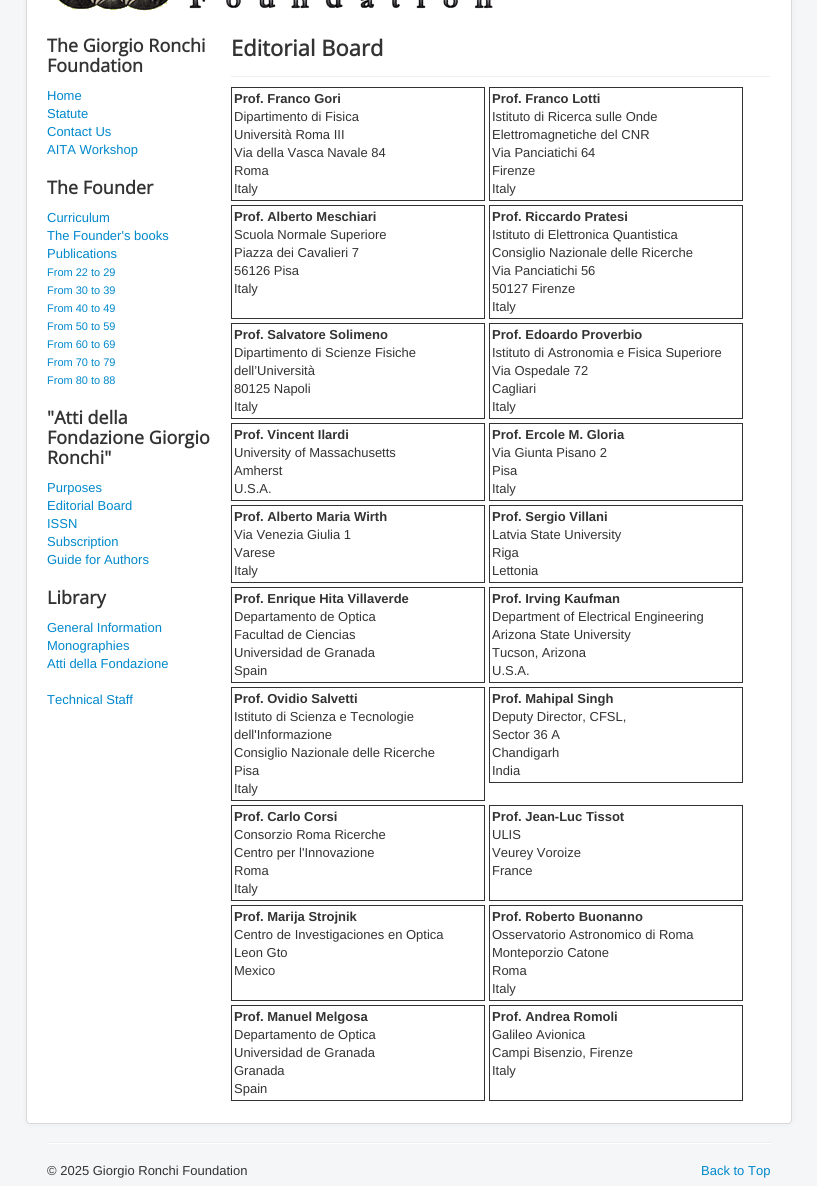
#include <cairo/cairo.h>
#include <math.h>
#include <stddef.h>

static cairo_t *cr;

static void use_color(int r, int g, int b) {
  cairo_set_source_rgb(cr, r / 255.0, g / 255.0, b / 255.0);
}

static void text(double x, double y, const char *s, const char *family, double size, int italic, int bold, int r, int g, int b) {
  cairo_select_font_face(cr, family, italic ? CAIRO_FONT_SLANT_ITALIC : CAIRO_FONT_SLANT_NORMAL,
    bold ? CAIRO_FONT_WEIGHT_BOLD : CAIRO_FONT_WEIGHT_NORMAL);
  cairo_set_font_size(cr, size);
  use_color(r, g, b);
  cairo_move_to(cr, x, y);
  cairo_show_text(cr, s);
}

static void box(double x, double y, double w, double h, int r, int g, int b) {
  use_color(r, g, b);
  cairo_rectangle(cr, x, y, w, h);
  cairo_fill(cr);
}

static void round_rect(double x, double y, double w, double h, double r) {
  cairo_new_sub_path(cr);
  cairo_arc(cr, x + w - r, y + h - r, r, 0, M_PI / 2);
  cairo_arc(cr, x + r, y + h - r, r, M_PI / 2, M_PI);
  cairo_arc(cr, x + r, y + r, r, M_PI, 1.5 * M_PI);
  cairo_arc(cr, x + w - r, y + r, r, 1.5 * M_PI, 2 * M_PI);
  cairo_close_path(cr);
}

static void shadow(double x, double y, double w, double h, double r, double blur, double alpha) {
  cairo_push_group_with_content(cr, CAIRO_CONTENT_ALPHA);
  cairo_set_operator(cr, CAIRO_OPERATOR_SOURCE);
  for (int i = 15; i >= -15 && fmin(w, h) + blur * i / 3 > 0; i -= 2) {
    double e = blur * i / 6;
    cairo_set_source_rgba(cr, 0, 0, 0, alpha * erfc((i - 1) / 8.5) / 2);
    round_rect(x - e, y - e, w + 2 * e, h + 2 * e, fmax(0, fmin(r + e + blur * .6, fmin(w, h) / 2 + e)));
    cairo_fill(cr);
  }
  cairo_pattern_t *soft = cairo_pop_group(cr);
  cairo_mask(cr, soft);
  cairo_pattern_destroy(soft);
}

static void picture(const char *path, double x, double y, double w, double h) {
  cairo_surface_t *image = cairo_image_surface_create_from_png(path);
  cairo_save(cr);
  cairo_set_source_surface(cr, image, x, y);
  cairo_rectangle(cr, x, y, w, h);
  cairo_fill(cr);
  cairo_restore(cr);
  cairo_surface_destroy(image);
}

static void draw(void) {
  use_color(244, 246, 247);
  cairo_paint(cr);
  use_color(0, 0, 0);
  shadow(26, -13, 766, 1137, 4, 3, 0.05);
  use_color(255, 255, 255);
  round_rect(26, -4, 766, 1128, 4);
  cairo_fill(cr);
  round_rect(26.5, -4.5, 765, 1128, 3.5);
  cairo_set_source_rgba(cr, 0, 0, 0, 0.15);
  cairo_set_line_width(cr, 1);
  cairo_stroke(cr);
  picture("img_01.png", 58, 0, 435, 11);
  box(231, 76, 539, 1, 238, 238, 238);
  cairo_rectangle(cr, 231.5, 87.5, 253, 113);
  use_color(51, 51, 51);
  cairo_stroke(cr);
  cairo_rectangle(cr, 489.5, 87.5, 253, 113);
  cairo_stroke(cr);
  cairo_rectangle(cr, 231.5, 205.5, 253, 113);
  cairo_stroke(cr);
  cairo_rectangle(cr, 489.5, 205.5, 253, 113);
  cairo_stroke(cr);
  cairo_rectangle(cr, 231.5, 323.5, 253, 95);
  cairo_stroke(cr);
  cairo_rectangle(cr, 489.5, 323.5, 253, 95);
  cairo_stroke(cr);
  cairo_rectangle(cr, 231.5, 423.5, 253, 77);
  cairo_stroke(cr);
  cairo_rectangle(cr, 489.5, 423.5, 253, 77);
  cairo_stroke(cr);
  cairo_rectangle(cr, 231.5, 505.5, 253, 77);
  cairo_stroke(cr);
  cairo_rectangle(cr, 489.5, 505.5, 253, 77);
  cairo_stroke(cr);
  cairo_rectangle(cr, 231.5, 587.5, 253, 95);
  cairo_stroke(cr);
  cairo_rectangle(cr, 489.5, 587.5, 253, 95);
  cairo_stroke(cr);
  cairo_rectangle(cr, 231.5, 687.5, 253, 113);
  cairo_stroke(cr);
  cairo_rectangle(cr, 489.5, 687.5, 253, 95);
  cairo_stroke(cr);
  cairo_rectangle(cr, 231.5, 805.5, 253, 95);
  cairo_stroke(cr);
  cairo_rectangle(cr, 489.5, 805.5, 253, 95);
  cairo_stroke(cr);
  cairo_rectangle(cr, 231.5, 905.5, 253, 95);
  cairo_stroke(cr);
  cairo_rectangle(cr, 489.5, 905.5, 253, 95);
  cairo_stroke(cr);
  cairo_rectangle(cr, 231.5, 1005.5, 253, 95);
  cairo_stroke(cr);
  cairo_rectangle(cr, 489.5, 1005.5, 253, 95);
  cairo_stroke(cr);
  box(47, 1142, 724, 1, 238, 238, 238);
  box(47, 1143, 724, 1, 255, 255, 255);
  text(47, 52, "The Giorgio Ronchi", "Open Sans", 18, 0, 1, 51, 51, 51);
  text(47, 72, "Foundation", "Open Sans", 18, 0, 1, 51, 51, 51);
  text(47, 100, "Home", "Liberation Sans", 13, 0, 0, 0, 136, 204);
  text(47, 118, "Statute", "Liberation Sans", 13, 0, 0, 0, 136, 204);
  text(47, 136, "Contact Us", "Liberation Sans", 13, 0, 0, 0, 136, 204);
  text(47, 154, "AITA Workshop", "Liberation Sans", 13, 0, 0, 0, 136, 204);
  text(47, 194, "The Founder", "Open Sans", 18, 0, 1, 51, 51, 51);
  text(47, 222, "Curriculum", "Liberation Sans", 13, 0, 0, 0, 136, 204);
  text(47, 240, "The Founder's books", "Liberation Sans", 13, 0, 0, 0, 136, 204);
  text(47, 258, "Publications", "Liberation Sans", 13, 0, 0, 0, 136, 204);
  text(47, 276, "From 22 to 29", "Liberation Sans", 11, 0, 0, 0, 136, 204);
  text(47, 294, "From 30 to 39", "Liberation Sans", 11, 0, 0, 0, 136, 204);
  text(47, 312, "From 40 to 49", "Liberation Sans", 11, 0, 0, 0, 136, 204);
  text(47, 330, "From 50 to 59", "Liberation Sans", 11, 0, 0, 0, 136, 204);
  text(47, 348, "From 60 to 69", "Liberation Sans", 11, 0, 0, 0, 136, 204);
  text(47, 366, "From 70 to 79", "Liberation Sans", 11, 0, 0, 0, 136, 204);
  text(47, 384, "From 80 to 88", "Liberation Sans", 11, 0, 0, 0, 136, 204);
  text(47, 424, "\"Atti della", "Open Sans", 18, 0, 1, 51, 51, 51);
  text(47, 444, "Fondazione Giorgio", "Open Sans", 18, 0, 1, 51, 51, 51);
  text(47, 464, "Ronchi\"", "Open Sans", 18, 0, 1, 51, 51, 51);
  text(47, 492, "Purposes", "Liberation Sans", 13, 0, 0, 0, 136, 204);
  text(47, 510, "Editorial Board", "Liberation Sans", 13, 0, 0, 0, 136, 204);
  text(47, 528, "ISSN", "Liberation Sans", 13, 0, 0, 0, 136, 204);
  text(47, 546, "Subscription", "Liberation Sans", 13, 0, 0, 0, 136, 204);
  text(47, 564, "Guide for Authors", "Liberation Sans", 13, 0, 0, 0, 136, 204);
  text(47, 604, "Library", "Open Sans", 18, 0, 1, 51, 51, 51);
  text(47, 632, "General Information", "Liberation Sans", 13, 0, 0, 0, 136, 204);
  text(47, 650, "Monographies", "Liberation Sans", 13, 0, 0, 0, 136, 204);
  text(47, 668, "Atti della Fondazione", "Liberation Sans", 13, 0, 0, 0, 136, 204);
  text(47, 704, "Technical Staff", "Liberation Sans", 13, 0, 0, 0, 136, 204);
  text(231, 56, "Editorial Board", "Open Sans", 22, 0, 1, 51, 51, 51);
  text(234, 103, "Prof. Franco Gori", "Liberation Sans", 13, 0, 1, 51, 51, 51);
  text(234, 121, "Dipartimento di Fisica", "Liberation Sans", 13, 0, 0, 51, 51, 51);
  text(234, 139, "Università Roma III", "Liberation Sans", 13, 0, 0, 51, 51, 51);
  text(234, 157, "Via della Vasca Navale 84", "Liberation Sans", 13, 0, 0, 51, 51, 51);
  text(234, 175, "Roma", "Liberation Sans", 13, 0, 0, 51, 51, 51);
  text(234, 193, "Italy", "Liberation Sans", 13, 0, 0, 51, 51, 51);
  text(492, 103, "Prof. Franco Lotti", "Liberation Sans", 13, 0, 1, 51, 51, 51);
  text(492, 121, "Istituto di Ricerca sulle Onde", "Liberation Sans", 13, 0, 0, 51, 51, 51);
  text(492, 139, "Elettromagnetiche del CNR", "Liberation Sans", 13, 0, 0, 51, 51, 51);
  text(492, 157, "Via Panciatichi 64", "Liberation Sans", 13, 0, 0, 51, 51, 51);
  text(492, 175, "Firenze", "Liberation Sans", 13, 0, 0, 51, 51, 51);
  text(492, 193, "Italy", "Liberation Sans", 13, 0, 0, 51, 51, 51);
  text(234, 221, "Prof. Alberto Meschiari", "Liberation Sans", 13, 0, 1, 51, 51, 51);
  text(234, 239, "Scuola Normale Superiore", "Liberation Sans", 13, 0, 0, 51, 51, 51);
  text(234, 257, "Piazza dei Cavalieri 7", "Liberation Sans", 13, 0, 0, 51, 51, 51);
  text(234, 275, "56126 Pisa", "Liberation Sans", 13, 0, 0, 51, 51, 51);
  text(234, 293, "Italy", "Liberation Sans", 13, 0, 0, 51, 51, 51);
  text(492, 221, "Prof. Riccardo Pratesi", "Liberation Sans", 13, 0, 1, 51, 51, 51);
  text(492, 239, "Istituto di Elettronica Quantistica", "Liberation Sans", 13, 0, 0, 51, 51, 51);
  text(492, 257, "Consiglio Nazionale delle Ricerche", "Liberation Sans", 13, 0, 0, 51, 51, 51);
  text(492, 275, "Via Panciatichi 56", "Liberation Sans", 13, 0, 0, 51, 51, 51);
  text(492, 293, "50127 Firenze", "Liberation Sans", 13, 0, 0, 51, 51, 51);
  text(492, 311, "Italy", "Liberation Sans", 13, 0, 0, 51, 51, 51);
  text(234, 339, "Prof. Salvatore Solimeno", "Liberation Sans", 13, 0, 1, 51, 51, 51);
  text(234, 357, "Dipartimento di Scienze Fisiche", "Liberation Sans", 13, 0, 0, 51, 51, 51);
  text(234, 375, "dell’Università", "Liberation Sans", 13, 0, 0, 51, 51, 51);
  text(234, 393, "80125 Napoli", "Liberation Sans", 13, 0, 0, 51, 51, 51);
  text(234, 411, "Italy", "Liberation Sans", 13, 0, 0, 51, 51, 51);
  text(492, 339, "Prof. Edoardo Proverbio", "Liberation Sans", 13, 0, 1, 51, 51, 51);
  text(492, 357, "Istituto di Astronomia e Fisica Superiore", "Liberation Sans", 13, 0, 0, 51, 51, 51);
  text(492, 375, "Via Ospedale 72", "Liberation Sans", 13, 0, 0, 51, 51, 51);
  text(492, 393, "Cagliari", "Liberation Sans", 13, 0, 0, 51, 51, 51);
  text(492, 411, "Italy", "Liberation Sans", 13, 0, 0, 51, 51, 51);
  text(234, 439, "Prof. Vincent Ilardi", "Liberation Sans", 13, 0, 1, 51, 51, 51);
  text(234, 457, "University of Massachusetts", "Liberation Sans", 13, 0, 0, 51, 51, 51);
  text(234, 475, "Amherst", "Liberation Sans", 13, 0, 0, 51, 51, 51);
  text(234, 493, "U.S.A.", "Liberation Sans", 13, 0, 0, 51, 51, 51);
  text(492, 439, "Prof. Ercole M. Gloria", "Liberation Sans", 13, 0, 1, 51, 51, 51);
  text(492, 457, "Via Giunta Pisano 2", "Liberation Sans", 13, 0, 0, 51, 51, 51);
  text(492, 475, "Pisa", "Liberation Sans", 13, 0, 0, 51, 51, 51);
  text(492, 493, "Italy", "Liberation Sans", 13, 0, 0, 51, 51, 51);
  text(234, 521, "Prof. Alberto Maria Wirth", "Liberation Sans", 13, 0, 1, 51, 51, 51);
  text(234, 539, "Via Venezia Giulia 1", "Liberation Sans", 13, 0, 0, 51, 51, 51);
  text(234, 557, "Varese", "Liberation Sans", 13, 0, 0, 51, 51, 51);
  text(234, 575, "Italy", "Liberation Sans", 13, 0, 0, 51, 51, 51);
  text(492, 521, "Prof. Sergio Villani", "Liberation Sans", 13, 0, 1, 51, 51, 51);
  text(492, 539, "Latvia State University", "Liberation Sans", 13, 0, 0, 51, 51, 51);
  text(492, 557, "Riga", "Liberation Sans", 13, 0, 0, 51, 51, 51);
  text(492, 575, "Lettonia", "Liberation Sans", 13, 0, 0, 51, 51, 51);
  text(234, 603, "Prof. Enrique Hita Villaverde", "Liberation Sans", 13, 0, 1, 51, 51, 51);
  text(234, 621, "Departamento de Optica", "Liberation Sans", 13, 0, 0, 51, 51, 51);
  text(234, 639, "Facultad de Ciencias", "Liberation Sans", 13, 0, 0, 51, 51, 51);
  text(234, 657, "Universidad de Granada", "Liberation Sans", 13, 0, 0, 51, 51, 51);
  text(234, 675, "Spain", "Liberation Sans", 13, 0, 0, 51, 51, 51);
  text(492, 603, "Prof. Irving Kaufman", "Liberation Sans", 13, 0, 1, 51, 51, 51);
  text(492, 621, "Department of Electrical Engineering", "Liberation Sans", 13, 0, 0, 51, 51, 51);
  text(492, 639, "Arizona State University", "Liberation Sans", 13, 0, 0, 51, 51, 51);
  text(492, 657, "Tucson, Arizona", "Liberation Sans", 13, 0, 0, 51, 51, 51);
  text(492, 675, "U.S.A.", "Liberation Sans", 13, 0, 0, 51, 51, 51);
  text(234, 703, "Prof. Ovidio Salvetti", "Liberation Sans", 13, 0, 1, 51, 51, 51);
  text(234, 721, "Istituto di Scienza e Tecnologie", "Liberation Sans", 13, 0, 0, 51, 51, 51);
  text(234, 739, "dell'Informazione", "Liberation Sans", 13, 0, 0, 51, 51, 51);
  text(234, 757, "Consiglio Nazionale delle Ricerche", "Liberation Sans", 13, 0, 0, 51, 51, 51);
  text(234, 775, "Pisa", "Liberation Sans", 13, 0, 0, 51, 51, 51);
  text(234, 793, "Italy", "Liberation Sans", 13, 0, 0, 51, 51, 51);
  text(492, 703, "Prof. Mahipal Singh", "Liberation Sans", 13, 0, 1, 51, 51, 51);
  text(492, 721, "Deputy Director, CFSL,", "Liberation Sans", 13, 0, 0, 51, 51, 51);
  text(492, 739, "Sector 36 A", "Liberation Sans", 13, 0, 0, 51, 51, 51);
  text(492, 757, "Chandigarh", "Liberation Sans", 13, 0, 0, 51, 51, 51);
  text(492, 775, "India", "Liberation Sans", 13, 0, 0, 51, 51, 51);
  text(234, 821, "Prof. Carlo Corsi", "Liberation Sans", 13, 0, 1, 51, 51, 51);
  text(234, 839, "Consorzio Roma Ricerche", "Liberation Sans", 13, 0, 0, 51, 51, 51);
  text(234, 857, "Centro per l'Innovazione", "Liberation Sans", 13, 0, 0, 51, 51, 51);
  text(234, 875, "Roma", "Liberation Sans", 13, 0, 0, 51, 51, 51);
  text(234, 893, "Italy", "Liberation Sans", 13, 0, 0, 51, 51, 51);
  text(492, 821, "Prof. Jean-Luc Tissot", "Liberation Sans", 13, 0, 1, 51, 51, 51);
  text(492, 839, "ULIS", "Liberation Sans", 13, 0, 0, 51, 51, 51);
  text(492, 857, "Veurey Voroize", "Liberation Sans", 13, 0, 0, 51, 51, 51);
  text(492, 875, "France", "Liberation Sans", 13, 0, 0, 51, 51, 51);
  text(234, 921, "Prof. Marija Strojnik", "Liberation Sans", 13, 0, 1, 51, 51, 51);
  text(234, 939, "Centro de Investigaciones en Optica", "Liberation Sans", 13, 0, 0, 51, 51, 51);
  text(234, 957, "Leon Gto", "Liberation Sans", 13, 0, 0, 51, 51, 51);
  text(234, 975, "Mexico", "Liberation Sans", 13, 0, 0, 51, 51, 51);
  text(492, 921, "Prof. Roberto Buonanno", "Liberation Sans", 13, 0, 1, 51, 51, 51);
  text(492, 939, "Osservatorio Astronomico di Roma", "Liberation Sans", 13, 0, 0, 51, 51, 51);
  text(492, 957, "Monteporzio Catone", "Liberation Sans", 13, 0, 0, 51, 51, 51);
  text(492, 975, "Roma", "Liberation Sans", 13, 0, 0, 51, 51, 51);
  text(492, 993, "Italy", "Liberation Sans", 13, 0, 0, 51, 51, 51);
  text(234, 1021, "Prof. Manuel Melgosa", "Liberation Sans", 13, 0, 1, 51, 51, 51);
  text(234, 1039, "Departamento de Optica", "Liberation Sans", 13, 0, 0, 51, 51, 51);
  text(234, 1057, "Universidad de Granada", "Liberation Sans", 13, 0, 0, 51, 51, 51);
  text(234, 1075, "Granada", "Liberation Sans", 13, 0, 0, 51, 51, 51);
  text(234, 1093, "Spain", "Liberation Sans", 13, 0, 0, 51, 51, 51);
  text(492, 1021, "Prof. Andrea Romoli", "Liberation Sans", 13, 0, 1, 51, 51, 51);
  text(492, 1039, "Galileo Avionica", "Liberation Sans", 13, 0, 0, 51, 51, 51);
  text(492, 1057, "Campi Bisenzio, Firenze", "Liberation Sans", 13, 0, 0, 51, 51, 51);
  text(492, 1075, "Italy", "Liberation Sans", 13, 0, 0, 51, 51, 51);
  text(47, 1175, "© 2025 Giorgio Ronchi Foundation", "Liberation Sans", 13, 0, 0, 51, 51, 51);
  text(701, 1175, "Back to Top", "Liberation Sans", 13, 0, 0, 0, 136, 204);
}

int main(void) {
  cairo_surface_t *surface = cairo_image_surface_create(CAIRO_FORMAT_RGB24, 817, 1186);
  cr = cairo_create(surface);
  cairo_font_options_t *options = cairo_font_options_create();
  cairo_font_options_set_hint_metrics(options, CAIRO_HINT_METRICS_OFF);
  cairo_font_options_set_hint_style(options, CAIRO_HINT_STYLE_NONE);
  cairo_set_font_options(cr, options);
  cairo_set_miter_limit(cr, 4);
  draw();
  cairo_surface_write_to_png(surface, "out.png");
  cairo_font_options_destroy(options);
  cairo_destroy(cr);
  cairo_surface_destroy(surface);
  return 0;
}
